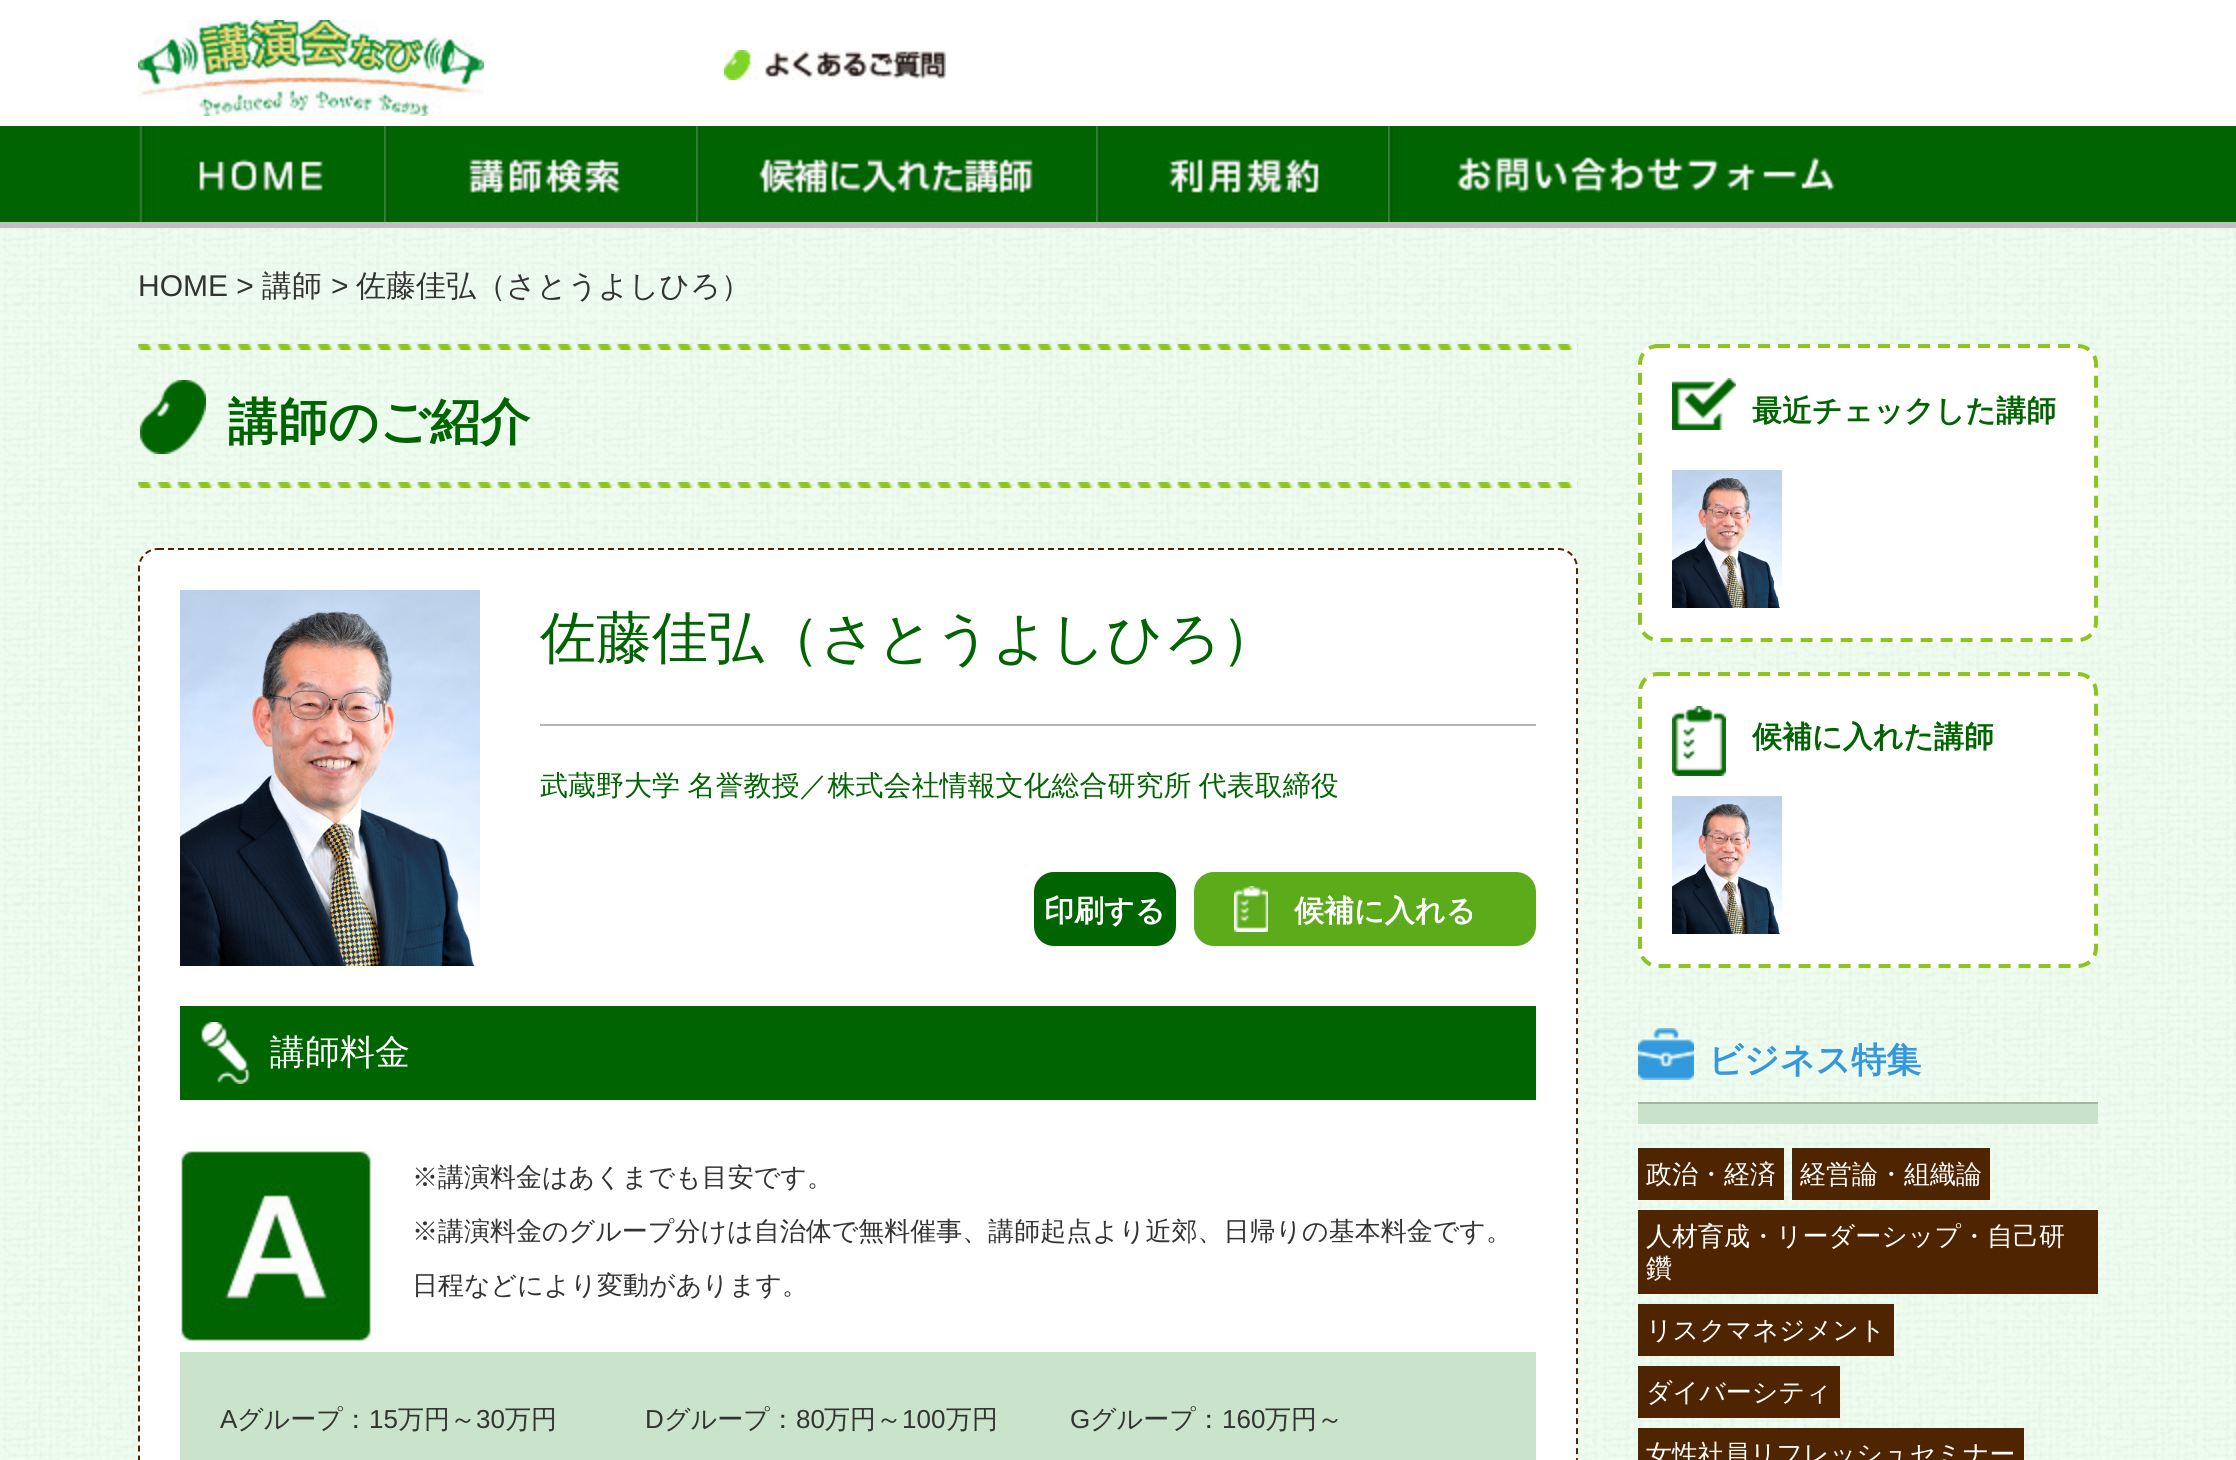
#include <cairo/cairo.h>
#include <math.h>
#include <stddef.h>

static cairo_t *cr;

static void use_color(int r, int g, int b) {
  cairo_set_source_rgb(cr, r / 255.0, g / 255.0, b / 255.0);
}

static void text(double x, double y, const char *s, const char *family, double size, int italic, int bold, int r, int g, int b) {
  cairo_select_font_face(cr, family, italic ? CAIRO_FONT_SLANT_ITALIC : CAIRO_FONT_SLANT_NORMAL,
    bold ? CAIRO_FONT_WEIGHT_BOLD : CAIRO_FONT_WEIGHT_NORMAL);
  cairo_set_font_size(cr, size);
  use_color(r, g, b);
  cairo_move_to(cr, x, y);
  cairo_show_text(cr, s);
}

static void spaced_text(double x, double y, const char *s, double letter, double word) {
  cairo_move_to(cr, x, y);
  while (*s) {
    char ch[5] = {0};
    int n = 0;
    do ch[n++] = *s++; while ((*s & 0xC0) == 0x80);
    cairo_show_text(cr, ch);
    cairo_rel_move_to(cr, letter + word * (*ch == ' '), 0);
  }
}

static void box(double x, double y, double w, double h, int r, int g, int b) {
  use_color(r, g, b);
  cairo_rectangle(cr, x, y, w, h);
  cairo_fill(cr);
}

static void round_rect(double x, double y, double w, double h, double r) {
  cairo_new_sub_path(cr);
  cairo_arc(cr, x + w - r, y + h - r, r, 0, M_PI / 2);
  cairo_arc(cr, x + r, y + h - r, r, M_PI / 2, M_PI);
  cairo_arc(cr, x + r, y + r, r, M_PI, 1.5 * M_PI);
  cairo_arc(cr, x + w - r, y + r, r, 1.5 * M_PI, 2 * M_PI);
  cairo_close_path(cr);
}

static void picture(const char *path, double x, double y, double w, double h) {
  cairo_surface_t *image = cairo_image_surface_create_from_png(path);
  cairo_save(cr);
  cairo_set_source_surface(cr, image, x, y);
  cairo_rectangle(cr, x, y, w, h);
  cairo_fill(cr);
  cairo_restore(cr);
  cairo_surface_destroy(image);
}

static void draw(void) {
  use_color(255, 255, 255);
  cairo_paint(cr);
  picture("img_01.png", 138, 20, 346, 96);
  picture("img_02.png", 724, 50, 222, 30);
  box(0, 126, 2236, 96, 0, 100, 0);
  box(0, 222, 2236, 6, 191, 191, 191);
  picture("img_03.png", 139, 126, 191, 96);
  picture("img_04.png", 384, 126, 239, 96);
  picture("img_05.png", 696, 126, 337, 96);
  picture("img_06.png", 1096, 126, 224, 96);
  picture("img_07.png", 1388, 126, 447, 96);
  picture("img_08.png", 0, 228, 2236, 1232);
  picture("img_09.png", 140, 380, 66, 74);
  picture("img_10.png", 138, 344, 1440, 6);
  picture("img_11.png", 138, 482, 1440, 6);
  use_color(255, 255, 255);
  round_rect(138, 548, 1440, 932, 20);
  cairo_fill(cr);
  cairo_new_path(cr);
  cairo_move_to(cr, 158, 549);
  cairo_line_to(cr, 1558, 549);
  cairo_curve_to(cr, 1568.5, 549, 1577, 557.5, 1577, 568);
  cairo_line_to(cr, 1577, 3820);
  cairo_curve_to(cr, 1577, 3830.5, 1568.5, 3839, 1558, 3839);
  cairo_line_to(cr, 158, 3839);
  cairo_curve_to(cr, 147.5, 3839, 139, 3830.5, 139, 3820);
  cairo_line_to(cr, 139, 568);
  cairo_curve_to(cr, 139, 557.5, 147.5, 549, 158, 549);
  cairo_close_path(cr);
  use_color(78, 37, 0);
  cairo_set_dash(cr, (double[]){6, 4}, 2, 0);
  cairo_stroke(cr);
  picture("img_12.png", 180, 590, 300, 376);
  box(540, 724, 996, 2, 181, 181, 181);
  use_color(0, 100, 0);
  round_rect(1034, 872, 142, 74, 20);
  cairo_fill(cr);
  use_color(92, 171, 27);
  round_rect(1194, 872, 342, 74, 20);
  cairo_fill(cr);
  picture("img_13.png", 1234, 886, 34, 46);
  box(180, 1006, 1356, 94, 0, 100, 0);
  picture("img_14.png", 201, 1022, 49, 62);
  picture("img_15.png", 180, 1150, 192, 192);
  box(180, 1352, 1356, 108, 202, 228, 203);
  use_color(255, 255, 255);
  round_rect(1638, 344, 460, 298, 20);
  cairo_fill(cr);
  cairo_new_path(cr);
  cairo_move_to(cr, 1658, 346);
  cairo_line_to(cr, 2078, 346);
  cairo_curve_to(cr, 2088, 346, 2096, 354, 2096, 364);
  cairo_line_to(cr, 2096, 622);
  cairo_curve_to(cr, 2096, 632, 2088, 640, 2078, 640);
  cairo_line_to(cr, 1658, 640);
  cairo_curve_to(cr, 1648, 640, 1640, 632, 1640, 622);
  cairo_line_to(cr, 1640, 364);
  cairo_curve_to(cr, 1640, 354, 1648, 346, 1658, 346);
  cairo_close_path(cr);
  use_color(143, 195, 31);
  cairo_set_line_width(cr, 4);
  cairo_set_dash(cr, (double[]){12, 8}, 2, 0);
  cairo_stroke(cr);
  picture("img_16.png", 1672, 378, 64, 52);
  picture("img_17.png", 1672, 470, 110, 138);
  use_color(255, 255, 255);
  round_rect(1638, 672, 460, 296, 20);
  cairo_fill(cr);
  cairo_new_path(cr);
  cairo_move_to(cr, 1658, 674);
  cairo_line_to(cr, 2078, 674);
  cairo_curve_to(cr, 2088, 674, 2096, 682, 2096, 692);
  cairo_line_to(cr, 2096, 948);
  cairo_curve_to(cr, 2096, 958, 2088, 966, 2078, 966);
  cairo_line_to(cr, 1658, 966);
  cairo_curve_to(cr, 1648, 966, 1640, 958, 1640, 948);
  cairo_line_to(cr, 1640, 692);
  cairo_curve_to(cr, 1640, 682, 1648, 674, 1658, 674);
  cairo_close_path(cr);
  use_color(143, 195, 31);
  cairo_stroke(cr);
  picture("img_18.png", 1672, 706, 54, 70);
  picture("img_17.png", 1672, 796, 110, 138);
  picture("img_19.png", 1638, 1028, 56, 52);
  box(1638, 1102, 460, 2, 162, 182, 162);
  box(1638, 1104, 460, 20, 201, 227, 202);
  box(1638, 1148, 146, 52, 78, 37, 0);
  box(1792, 1148, 198, 52, 78, 37, 0);
  box(1638, 1210, 460, 84, 78, 37, 0);
  box(1638, 1304, 256, 52, 78, 37, 0);
  box(1638, 1366, 202, 52, 78, 37, 0);
  box(1638, 1428, 386, 32, 78, 37, 0);
  text(138, 296, "HOME >", "Liberation Sans", 30, 0, 0, 51, 51, 51);
  text(262, 296, "講師", "WenQuanYi Zen Hei Medium", 30, 0, 0, 51, 51, 51);
  text(331, 296, ">", "Liberation Sans", 30, 0, 0, 51, 51, 51);
  text(356, 296, "佐藤佳弘（さとうよしひろ）", "WenQuanYi Zen Hei Medium", 30, 0, 0, 51, 51, 51);
  text(228, 439, "講師のご紹介", "WenQuanYi Zen Hei", 50, 0, 1, 0, 100, 0);
  text(540, 657, "佐藤佳弘（さとうよしひろ）", "WenQuanYi Zen Hei Medium", 56, 0, 0, 0, 100, 0);
  cairo_set_font_size(cr, 28);
  spaced_text(540, 795, "武蔵野大学 名誉教授／株式会社情報文化総合研究所 代表取締役", 0, -1);
  text(1044, 921, "印刷する", "WenQuanYi Zen Hei", 30, 0, 1, 255, 255, 255);
  text(1294, 921, "候補に入れる", "WenQuanYi Zen Hei", 30, 0, 1, 255, 255, 255);
  text(270, 1064, "講師料金", "WenQuanYi Zen Hei Medium", 35, 0, 0, 255, 255, 255);
  text(412, 1186, "※講演料金はあくまでも目安です。", "WenQuanYi Zen Hei Medium", 26, 0, 0, 51, 51, 51);
  text(412, 1240, "※講演料金のグループ分けは自治体で無料催事、講師起点より近郊、日帰りの基本料金です。", "WenQuanYi Zen Hei Medium", 26, 0, 0, 51, 51, 51);
  text(412, 1294, "日程などにより変動があります。", "WenQuanYi Zen Hei Medium", 26, 0, 0, 51, 51, 51);
  text(220, 1428, "A", "Liberation Sans", 26, 0, 0, 51, 51, 51);
  text(237, 1428, "グループ：", "WenQuanYi Zen Hei Medium", 26, 0, 0, 51, 51, 51);
  text(369, 1428, "15", "Liberation Sans", 26, 0, 0, 51, 51, 51);
  text(398, 1428, "万円～", "WenQuanYi Zen Hei Medium", 26, 0, 0, 51, 51, 51);
  text(476, 1428, "30", "Liberation Sans", 26, 0, 0, 51, 51, 51);
  text(505, 1428, "万円", "WenQuanYi Zen Hei Medium", 26, 0, 0, 51, 51, 51);
  text(645, 1428, "D", "Liberation Sans", 26, 0, 0, 51, 51, 51);
  text(664, 1428, "グループ：", "WenQuanYi Zen Hei Medium", 26, 0, 0, 51, 51, 51);
  text(796, 1428, "80", "Liberation Sans", 26, 0, 0, 51, 51, 51);
  text(824, 1428, "万円～", "WenQuanYi Zen Hei Medium", 26, 0, 0, 51, 51, 51);
  text(902, 1428, "100", "Liberation Sans", 26, 0, 0, 51, 51, 51);
  text(946, 1428, "万円", "WenQuanYi Zen Hei Medium", 26, 0, 0, 51, 51, 51);
  text(1070, 1428, "G", "Liberation Sans", 26, 0, 0, 51, 51, 51);
  text(1090, 1428, "グループ：", "WenQuanYi Zen Hei Medium", 26, 0, 0, 51, 51, 51);
  text(1222, 1428, "160", "Liberation Sans", 26, 0, 0, 51, 51, 51);
  text(1265, 1428, "万円～", "WenQuanYi Zen Hei Medium", 26, 0, 0, 51, 51, 51);
  text(1752, 421, "最近チェックした講師", "WenQuanYi Zen Hei", 30, 0, 1, 0, 100, 0);
  text(1752, 747, "候補に入れた講師", "WenQuanYi Zen Hei", 30, 0, 1, 0, 100, 0);
  text(1708, 1072, "ビジネス特集", "WenQuanYi Zen Hei", 35, 0, 1, 52, 152, 219);
  text(1646, 1183, "政治・経済", "WenQuanYi Zen Hei Medium", 26, 0, 0, 255, 255, 255);
  text(1800, 1183, "経営論・組織論", "WenQuanYi Zen Hei Medium", 26, 0, 0, 255, 255, 255);
  text(1646, 1245, "人材育成・リーダーシップ・自己研", "WenQuanYi Zen Hei Medium", 26, 0, 0, 255, 255, 255);
  text(1646, 1277, "鑽", "WenQuanYi Zen Hei Medium", 26, 0, 0, 255, 255, 255);
  text(1646, 1339, "リスクマネジメント", "WenQuanYi Zen Hei Medium", 26, 0, 0, 255, 255, 255);
  text(1646, 1401, "ダイバーシティ", "WenQuanYi Zen Hei Medium", 26, 0, 0, 255, 255, 255);
  text(1646, 1463, "女性社員リフレッシュセミナー", "WenQuanYi Zen Hei Medium", 26, 0, 0, 255, 255, 255);
}

int main(void) {
  cairo_surface_t *surface = cairo_image_surface_create(CAIRO_FORMAT_RGB24, 2236, 1460);
  cr = cairo_create(surface);
  cairo_font_options_t *options = cairo_font_options_create();
  cairo_font_options_set_hint_metrics(options, CAIRO_HINT_METRICS_OFF);
  cairo_font_options_set_hint_style(options, CAIRO_HINT_STYLE_NONE);
  cairo_set_font_options(cr, options);
  cairo_set_miter_limit(cr, 4);
  draw();
  cairo_surface_write_to_png(surface, "out.png");
  cairo_font_options_destroy(options);
  cairo_destroy(cr);
  cairo_surface_destroy(surface);
  return 0;
}
